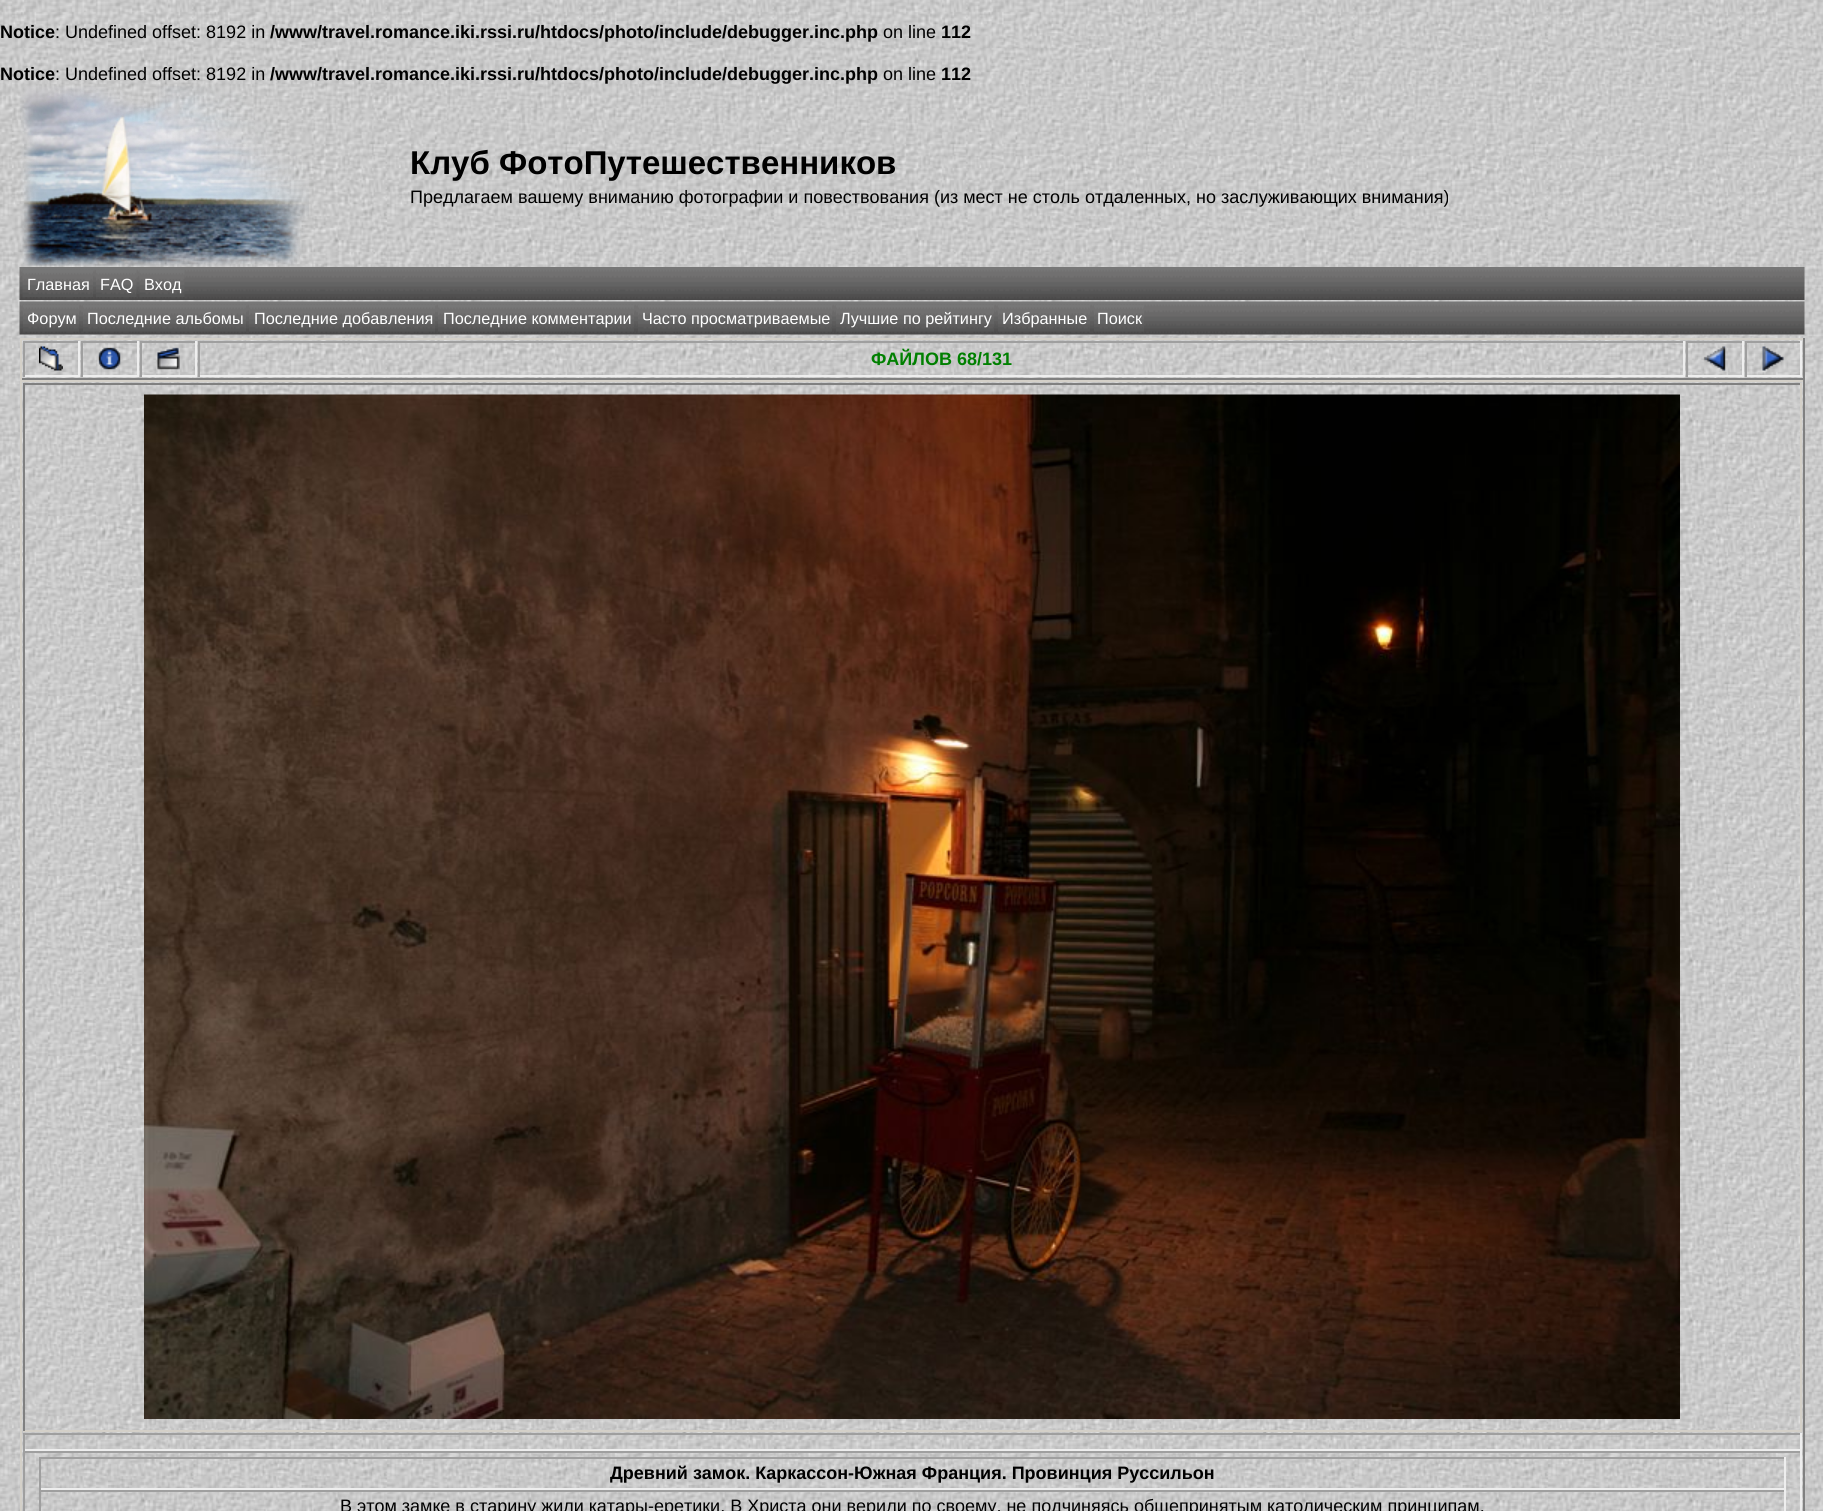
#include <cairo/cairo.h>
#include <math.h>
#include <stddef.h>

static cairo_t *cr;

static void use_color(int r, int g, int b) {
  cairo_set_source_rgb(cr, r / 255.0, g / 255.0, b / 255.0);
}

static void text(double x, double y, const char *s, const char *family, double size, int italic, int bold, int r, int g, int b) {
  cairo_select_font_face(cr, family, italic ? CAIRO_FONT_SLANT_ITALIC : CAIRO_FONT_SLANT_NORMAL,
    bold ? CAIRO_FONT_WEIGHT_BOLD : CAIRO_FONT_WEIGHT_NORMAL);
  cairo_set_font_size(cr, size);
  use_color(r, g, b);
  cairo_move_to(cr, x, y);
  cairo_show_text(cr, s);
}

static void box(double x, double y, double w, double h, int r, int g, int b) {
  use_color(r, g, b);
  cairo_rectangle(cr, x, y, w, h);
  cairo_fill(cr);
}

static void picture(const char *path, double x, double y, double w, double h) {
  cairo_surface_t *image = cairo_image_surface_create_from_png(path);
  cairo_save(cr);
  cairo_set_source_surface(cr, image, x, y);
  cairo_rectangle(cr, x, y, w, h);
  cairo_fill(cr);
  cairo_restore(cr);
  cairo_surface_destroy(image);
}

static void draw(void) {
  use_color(255, 255, 255);
  cairo_paint(cr);
  picture("img_01.png", 0, 0, 1823, 1511);
  picture("img_02.png", 20, 86, 289, 180);
  picture("img_03.png", 19, 267, 1786, 33);
  picture("img_04.png", 22, 270, 71, 27);
  picture("img_05.png", 96, 270, 41, 27);
  picture("img_06.png", 139, 270, 46, 27);
  picture("img_07.png", 19, 301, 1786, 34);
  picture("img_08.png", 23, 305, 56, 27);
  picture("img_09.png", 83, 305, 163, 27);
  picture("img_10.png", 249, 305, 186, 27);
  picture("img_11.png", 438, 305, 196, 27);
  picture("img_12.png", 638, 305, 194, 27);
  picture("img_13.png", 836, 305, 158, 27);
  picture("img_14.png", 998, 305, 92, 27);
  picture("img_15.png", 1094, 305, 50, 27);
  box(20, 338, 1785, 2, 212, 208, 200);
  box(1803, 338, 2, 42, 128, 128, 128);
  box(20, 378, 1785, 2, 128, 128, 128);
  box(20, 338, 2, 42, 212, 208, 200);
  box(23, 341, 57, 2, 159, 159, 159);
  box(78, 341, 2, 36, 238, 238, 238);
  box(23, 375, 57, 2, 238, 238, 238);
  box(23, 341, 2, 36, 159, 159, 159);
  picture("img_16.png", 39, 346, 24, 25);
  box(81, 341, 57, 2, 159, 159, 159);
  box(137, 341, 2, 36, 238, 238, 238);
  box(81, 375, 57, 2, 238, 238, 238);
  box(81, 341, 2, 36, 159, 159, 159);
  picture("img_17.png", 98, 347, 23, 23);
  box(140, 341, 57, 2, 159, 159, 159);
  box(195, 341, 2, 36, 238, 238, 238);
  box(140, 375, 57, 2, 238, 238, 238);
  box(140, 341, 2, 36, 159, 159, 159);
  picture("img_18.png", 157, 347, 23, 23);
  box(198, 341, 1487, 2, 159, 159, 159);
  box(1683, 341, 2, 36, 238, 238, 238);
  box(198, 375, 1487, 2, 238, 238, 238);
  box(198, 341, 2, 36, 159, 159, 159);
  box(1686, 341, 57, 2, 159, 159, 159);
  box(1742, 341, 2, 36, 238, 238, 238);
  box(1686, 375, 57, 2, 238, 238, 238);
  box(1686, 341, 2, 36, 159, 159, 159);
  picture("img_19.png", 1703, 346, 23, 25);
  box(1745, 341, 57, 2, 159, 159, 159);
  box(1800, 341, 2, 36, 238, 238, 238);
  box(1745, 375, 57, 2, 238, 238, 238);
  box(1745, 341, 2, 36, 159, 159, 159);
  picture("img_20.png", 1762, 346, 22, 25);
  box(20, 380, 1785, 2, 212, 208, 200);
  box(1803, 380, 2, 1131, 128, 128, 128);
  box(20, 380, 2, 1131, 212, 208, 200);
  box(23, 383, 1779, 2, 128, 128, 128);
  box(1800, 383, 2, 1048, 212, 208, 200);
  box(23, 1430, 1779, 2, 212, 208, 200);
  box(23, 383, 2, 1048, 128, 128, 128);
  picture("img_21.png", 144, 394, 1536, 1025);
  box(23, 1433, 1779, 2, 159, 159, 159);
  box(1800, 1433, 2, 18, 238, 238, 238);
  box(23, 1449, 1779, 2, 238, 238, 238);
  box(23, 1433, 2, 18, 159, 159, 159);
  box(23, 1451, 1779, 2, 159, 159, 159);
  box(1800, 1451, 2, 60, 238, 238, 238);
  box(23, 1451, 2, 60, 159, 159, 159);
  box(39, 1457, 1746, 2, 159, 159, 159);
  box(1784, 1457, 2, 33, 238, 238, 238);
  box(39, 1488, 1746, 2, 238, 238, 238);
  box(39, 1457, 2, 33, 159, 159, 159);
  box(39, 1490, 1746, 2, 159, 159, 159);
  box(1784, 1490, 2, 21, 238, 238, 238);
  box(39, 1490, 2, 21, 159, 159, 159);
  text(0, 38, "Notice", "Liberation Sans", 18, 0, 1, 0, 0, 0);
  text(55, 38, ": Undefined offset: 8192 in", "Liberation Sans", 18, 0, 0, 0, 0, 0);
  text(270, 38, "/www/travel.romance.iki.rssi.ru/htdocs/photo/include/debugger.inc.php", "Liberation Sans", 18, 0, 1, 0, 0, 0);
  text(883, 38, "on line", "Liberation Sans", 18, 0, 0, 0, 0, 0);
  text(941, 38, "112", "Liberation Sans", 18, 0, 1, 0, 0, 0);
  text(0, 80, "Notice", "Liberation Sans", 18, 0, 1, 0, 0, 0);
  text(55, 80, ": Undefined offset: 8192 in", "Liberation Sans", 18, 0, 0, 0, 0, 0);
  text(270, 80, "/www/travel.romance.iki.rssi.ru/htdocs/photo/include/debugger.inc.php", "Liberation Sans", 18, 0, 1, 0, 0, 0);
  text(883, 80, "on line", "Liberation Sans", 18, 0, 0, 0, 0, 0);
  text(941, 80, "112", "Liberation Sans", 18, 0, 1, 0, 0, 0);
  text(410, 174, "Клуб ФотоПутешественников", "Liberation Sans", 33, 0, 1, 0, 0, 0);
  text(410, 203, "Предлагаем вашему вниманию фотографии и повествования (из мест не столь отдаленных, но заслуживающих внимания)", "Liberation Sans", 18, 0, 0, 0, 0, 0);
  text(27, 290, "Главная", "Liberation Sans", 16.25, 0, 0, 255, 255, 255);
  text(100, 290, "FAQ", "Liberation Sans", 16.25, 0, 0, 255, 255, 255);
  text(144, 290, "Вход", "Liberation Sans", 16.25, 0, 0, 255, 255, 255);
  text(27, 324, "Форум", "Liberation Sans", 16.25, 0, 0, 255, 255, 255);
  text(87, 324, "Последние альбомы", "Liberation Sans", 16.25, 0, 0, 255, 255, 255);
  text(254, 324, "Последние добавления", "Liberation Sans", 16.25, 0, 0, 255, 255, 255);
  text(443, 324, "Последние комментарии", "Liberation Sans", 16.25, 0, 0, 255, 255, 255);
  text(642, 324, "Часто просматриваемые", "Liberation Sans", 16.25, 0, 0, 255, 255, 255);
  text(840, 324, "Лучшие по рейтингу", "Liberation Sans", 16.25, 0, 0, 255, 255, 255);
  text(1002, 324, "Избранные", "Liberation Sans", 16.25, 0, 0, 255, 255, 255);
  text(1097, 324, "Поиск", "Liberation Sans", 16.25, 0, 0, 255, 255, 255);
  text(871, 365, "ФАЙЛОВ 68/131", "Liberation Sans", 18, 0, 1, 0, 128, 0);
  text(610, 1479, "Древний замок. Каркассон-Южная Франция. Провинция Руссильон", "Liberation Sans", 18, 0, 1, 0, 0, 0);
  text(340, 1512, "В этом замке в старину жили катары-еретики. В Христа они верили по своему, не подчиняясь общепринятым католическим принципам.", "Liberation Sans", 18, 0, 0, 0, 0, 0);
}

int main(void) {
  cairo_surface_t *surface = cairo_image_surface_create(CAIRO_FORMAT_RGB24, 1823, 1511);
  cr = cairo_create(surface);
  cairo_font_options_t *options = cairo_font_options_create();
  cairo_font_options_set_hint_metrics(options, CAIRO_HINT_METRICS_OFF);
  cairo_font_options_set_hint_style(options, CAIRO_HINT_STYLE_NONE);
  cairo_set_font_options(cr, options);
  cairo_set_miter_limit(cr, 4);
  draw();
  cairo_surface_write_to_png(surface, "out.png");
  cairo_font_options_destroy(options);
  cairo_destroy(cr);
  cairo_surface_destroy(surface);
  return 0;
}
